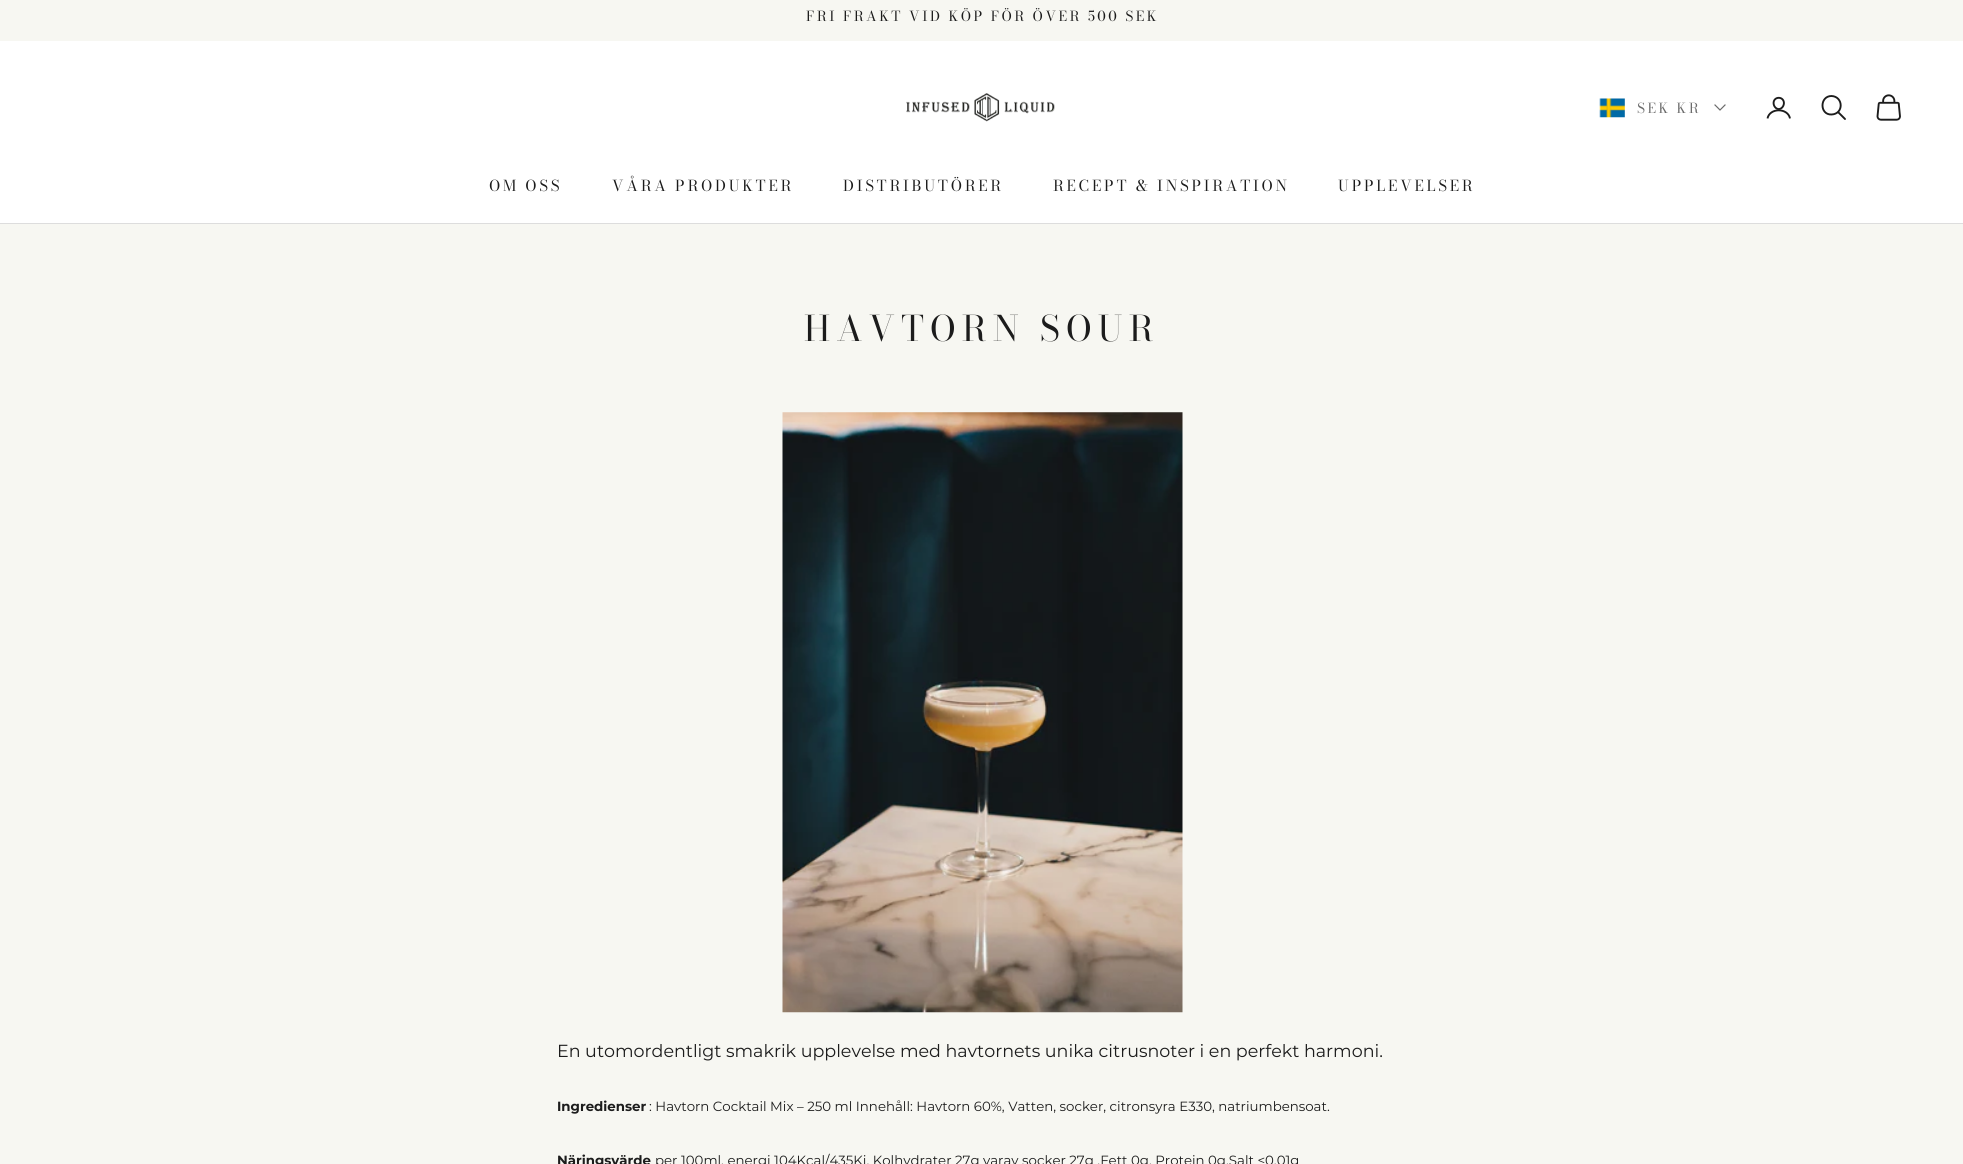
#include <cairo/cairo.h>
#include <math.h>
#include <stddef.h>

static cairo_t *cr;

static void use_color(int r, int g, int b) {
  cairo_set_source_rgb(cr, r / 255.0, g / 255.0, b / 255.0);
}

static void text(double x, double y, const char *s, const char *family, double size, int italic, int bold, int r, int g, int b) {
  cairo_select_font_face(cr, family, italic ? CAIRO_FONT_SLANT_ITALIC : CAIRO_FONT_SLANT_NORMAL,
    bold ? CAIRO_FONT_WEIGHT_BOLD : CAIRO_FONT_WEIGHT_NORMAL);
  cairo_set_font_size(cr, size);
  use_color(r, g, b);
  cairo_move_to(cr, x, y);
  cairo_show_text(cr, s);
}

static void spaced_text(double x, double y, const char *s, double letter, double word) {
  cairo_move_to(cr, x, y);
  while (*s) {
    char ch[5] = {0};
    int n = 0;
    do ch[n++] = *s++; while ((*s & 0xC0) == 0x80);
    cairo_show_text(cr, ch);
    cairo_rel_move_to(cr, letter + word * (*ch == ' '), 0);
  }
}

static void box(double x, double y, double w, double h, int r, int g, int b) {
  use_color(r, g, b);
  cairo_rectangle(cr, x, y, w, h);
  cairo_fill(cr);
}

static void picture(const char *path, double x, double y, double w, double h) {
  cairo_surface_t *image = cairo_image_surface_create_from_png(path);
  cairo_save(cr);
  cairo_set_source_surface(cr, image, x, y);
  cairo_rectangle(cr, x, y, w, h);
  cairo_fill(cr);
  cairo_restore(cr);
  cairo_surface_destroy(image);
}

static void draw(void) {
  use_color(247, 247, 242);
  cairo_paint(cr);
  box(0, 41, 1963, 182, 255, 255, 255);
  box(0, 223, 1963, 1, 221, 221, 221);
  picture("img_01.png", 906, 93, 149, 29);
  picture("img_02.png", 1599, 98, 26, 20);
  cairo_new_path(cr);
  cairo_move_to(cr, 1715, 105);
  cairo_line_to(cr, 1720, 110);
  cairo_line_to(cr, 1725, 105);
  use_color(107, 107, 107);
  cairo_set_line_width(cr, 1.2);
  cairo_set_line_cap(cr, CAIRO_LINE_CAP_SQUARE);
  cairo_stroke(cr);
  picture("img_03.png", 1766, 96, 25, 23);
  cairo_new_path(cr);
  cairo_move_to(cr, 1831.5, 96);
  cairo_curve_to(cr, 1819.5, 96, 1819.5, 115, 1831.5, 114.5);
  cairo_curve_to(cr, 1844, 114, 1843.5, 96.5, 1831.5, 96);
  cairo_close_path(cr);
  use_color(28, 28, 28);
  cairo_set_line_width(cr, 1.9);
  cairo_set_line_cap(cr, CAIRO_LINE_CAP_BUTT);
  cairo_stroke(cr);
  cairo_new_path(cr);
  cairo_move_to(cr, 1838.5, 112.5);
  cairo_line_to(cr, 1845, 119);
  cairo_set_line_cap(cr, CAIRO_LINE_CAP_ROUND);
  cairo_stroke(cr);
  picture("img_04.png", 1876, 94, 25, 27);
  picture("img_05.png", 782, 412, 401, 601);
  cairo_select_font_face(cr, "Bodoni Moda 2", CAIRO_FONT_SLANT_NORMAL, CAIRO_FONT_WEIGHT_NORMAL);
  cairo_set_font_size(cr, 13.75);
  spaced_text(806, 21, "FRI FRAKT VID KÖP FÖR ÖVER 500 SEK", 2.5, 0);
  use_color(107, 107, 107);
  spaced_text(1637, 113, "SEK KR", 2.5, 0);
  cairo_set_font_size(cr, 15);
  use_color(28, 28, 28);
  spaced_text(489, 191, "OM OSS", 2.75, 0);
  spaced_text(612, 191, "VÅRA PRODUKTER", 2.75, 0);
  spaced_text(843, 191, "DISTRIBUTÖRER", 2.75, 0);
  spaced_text(1053, 191, "RECEPT & INSPIRATION", 2.75, 0);
  spaced_text(1338, 191, "UPPLEVELSER", 2.75, 0);
  cairo_select_font_face(cr, "Bodoni Moda", CAIRO_FONT_SLANT_NORMAL, CAIRO_FONT_WEIGHT_NORMAL);
  cairo_set_font_size(cr, 35);
  spaced_text(804, 341, "HAVTORN SOUR", 6.25, 0);
  text(557, 1057, "En utomordentligt smakrik upplevelse med havtornets unika citrusnoter i en perfekt harmoni.", "Montserrat", 17.5, 0, 0, 28, 28, 28);
  text(557, 1111, "Ingredienser", "Montserrat", 13.33, 0, 1, 28, 28, 28);
  text(649, 1111, ": Havtorn Cocktail Mix – 250 ml Innehåll: Havtorn 60%, Vatten, socker, citronsyra E330, natriumbensoat.", "Montserrat", 13.33, 0, 0, 28, 28, 28);
  text(557, 1165, "Näringsvärde", "Montserrat", 13.33, 0, 1, 28, 28, 28);
  text(655, 1165, "per 100ml, energi 104Kcal/435Kj, Kolhydrater 27g varav socker 27g ,Fett 0g, Protein 0g,Salt <0,01g", "Montserrat", 13.33, 0, 0, 28, 28, 28);
}

int main(void) {
  cairo_surface_t *surface = cairo_image_surface_create(CAIRO_FORMAT_RGB24, 1963, 1164);
  cr = cairo_create(surface);
  cairo_font_options_t *options = cairo_font_options_create();
  cairo_font_options_set_hint_metrics(options, CAIRO_HINT_METRICS_OFF);
  cairo_font_options_set_hint_style(options, CAIRO_HINT_STYLE_NONE);
  cairo_set_font_options(cr, options);
  cairo_set_miter_limit(cr, 4);
  draw();
  cairo_surface_write_to_png(surface, "out.png");
  cairo_font_options_destroy(options);
  cairo_destroy(cr);
  cairo_surface_destroy(surface);
  return 0;
}
